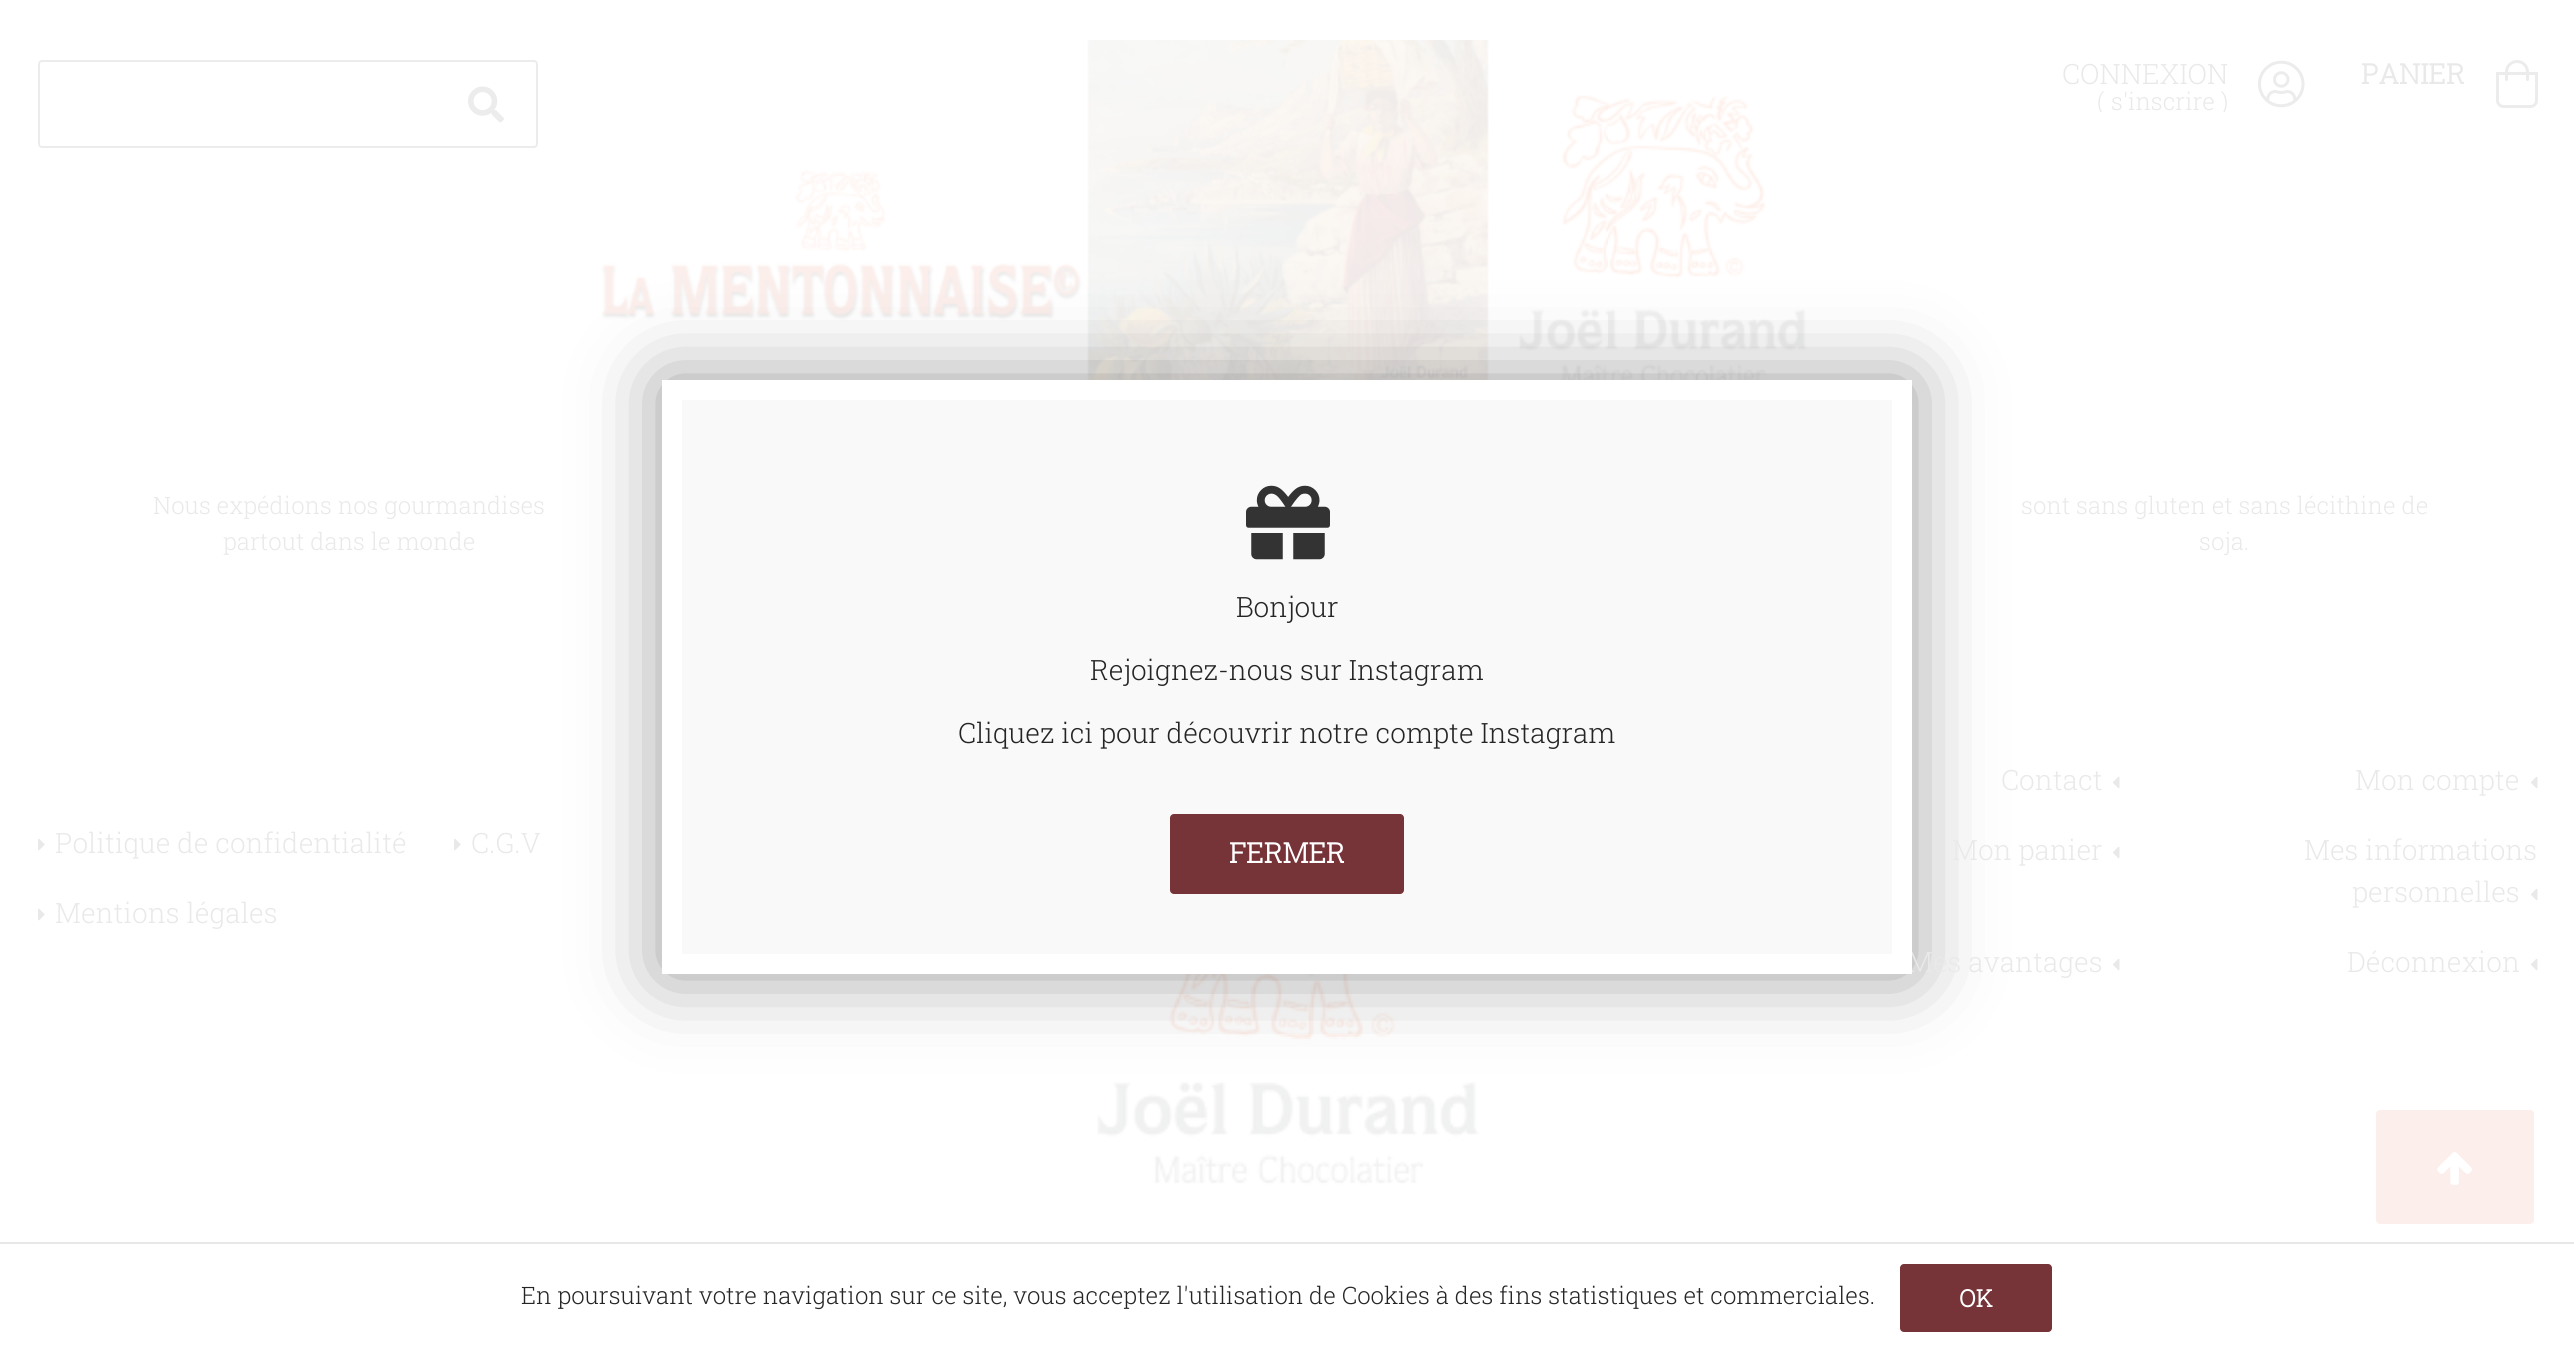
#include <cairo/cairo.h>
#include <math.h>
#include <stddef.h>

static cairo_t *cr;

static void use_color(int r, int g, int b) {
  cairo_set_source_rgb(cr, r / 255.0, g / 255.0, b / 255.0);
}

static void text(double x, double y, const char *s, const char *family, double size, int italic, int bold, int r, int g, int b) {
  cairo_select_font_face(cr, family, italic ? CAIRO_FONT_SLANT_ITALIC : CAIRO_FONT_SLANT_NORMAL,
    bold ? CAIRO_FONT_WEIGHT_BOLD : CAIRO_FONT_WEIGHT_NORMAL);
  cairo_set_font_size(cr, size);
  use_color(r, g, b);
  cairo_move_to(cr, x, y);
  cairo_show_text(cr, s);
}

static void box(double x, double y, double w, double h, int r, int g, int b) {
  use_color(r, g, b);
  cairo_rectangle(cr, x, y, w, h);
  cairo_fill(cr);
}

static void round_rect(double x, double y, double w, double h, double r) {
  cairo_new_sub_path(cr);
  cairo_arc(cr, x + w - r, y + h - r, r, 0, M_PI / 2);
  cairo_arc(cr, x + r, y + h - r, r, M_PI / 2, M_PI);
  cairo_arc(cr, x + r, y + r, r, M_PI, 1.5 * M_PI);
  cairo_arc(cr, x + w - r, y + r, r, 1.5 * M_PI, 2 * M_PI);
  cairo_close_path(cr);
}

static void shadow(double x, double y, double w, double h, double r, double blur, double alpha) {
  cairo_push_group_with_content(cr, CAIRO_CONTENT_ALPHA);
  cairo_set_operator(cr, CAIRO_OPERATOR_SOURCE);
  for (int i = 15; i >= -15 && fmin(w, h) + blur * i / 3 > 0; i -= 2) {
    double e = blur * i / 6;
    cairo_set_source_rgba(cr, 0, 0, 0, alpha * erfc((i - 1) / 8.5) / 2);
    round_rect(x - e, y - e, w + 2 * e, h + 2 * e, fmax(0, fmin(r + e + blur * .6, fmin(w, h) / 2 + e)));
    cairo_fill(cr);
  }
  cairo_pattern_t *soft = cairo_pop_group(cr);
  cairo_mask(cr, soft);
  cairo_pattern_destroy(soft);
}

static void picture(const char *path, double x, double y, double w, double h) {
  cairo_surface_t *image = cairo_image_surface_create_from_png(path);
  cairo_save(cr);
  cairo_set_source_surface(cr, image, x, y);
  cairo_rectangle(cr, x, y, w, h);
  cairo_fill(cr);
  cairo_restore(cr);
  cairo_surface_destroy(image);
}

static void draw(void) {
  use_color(255, 255, 255);
  cairo_paint(cr);
  round_rect(39, 61, 498, 86, 3);
  use_color(236, 236, 236);
  cairo_stroke(cr);
  use_color(255, 255, 255);
  cairo_new_path(cr);
  cairo_move_to(cr, 40, 70);
  cairo_line_to(cr, 436, 70);
  cairo_line_to(cr, 436, 146);
  cairo_line_to(cr, 42, 146);
  cairo_curve_to(cr, 41, 146, 40, 145, 40, 144);
  cairo_close_path(cr);
  cairo_fill(cr);
  picture("img_01.png", 468, 86, 36, 37);
  picture("img_02.png", 600, 40, 1207, 400);
  picture("img_03.png", 2258, 60, 47, 48);
  picture("img_04.png", 2496, 60, 42, 48);
  picture("img_09.png", 1097, 974, 382, 212);
  use_color(0, 0, 0);
  shadow(662, 380, 1250, 594, 0, 40, 0.4);
  use_color(252, 238, 235);
  round_rect(2376, 1110, 158, 114, 4);
  cairo_fill(cr);
  picture("img_06.png", 2437, 1152, 35, 33);
  picture("img_07.png", 38, 838, 7, 13);
  picture("img_07.png", 454, 838, 7, 13);
  picture("img_07.png", 38, 908, 7, 13);
  picture("img_08.png", 2112, 776, 8, 13);
  picture("img_08.png", 2530, 776, 8, 13);
  picture("img_08.png", 2112, 846, 8, 13);
  picture("img_08.png", 2530, 888, 8, 13);
  picture("img_08.png", 2112, 958, 8, 13);
  picture("img_08.png", 2530, 958, 8, 13);
  box(0, 1242, 2574, 2, 231, 231, 231);
  use_color(118, 51, 56);
  round_rect(1900, 1264, 152, 68, 4);
  cairo_fill(cr);
  text(2062, 84, "CONNEXION", "Roboto Slab Light", 28, 0, 0, 233, 233, 233);
  cairo_save(cr);
  cairo_rectangle(cr, 2062, 88, 166, 24);
  cairo_clip(cr);
  text(2097, 110, "(", "Roboto Slab Light", 24, 0, 0, 233, 233, 233);
  cairo_restore(cr);
  text(2111, 110, "s'inscrire", "Roboto Slab Light", 24, 0, 0, 233, 233, 233);
  cairo_save(cr);
  cairo_rectangle(cr, 2062, 88, 166, 24);
  cairo_clip(cr);
  text(2221, 110, ")", "Roboto Slab Light", 24, 0, 0, 233, 233, 233);
  cairo_restore(cr);
  text(2361, 84, "PANIER", "Roboto Slab", 28, 0, 1, 233, 233, 233);
  text(153, 514, "Nous expédions nos gourmandises", "Roboto Slab Light", 24, 0, 0, 233, 233, 233);
  text(223, 550, "partout dans le monde", "Roboto Slab Light", 24, 0, 0, 233, 233, 233);
  text(2021, 514, "sont sans gluten et sans lécithine de", "Roboto Slab Light", 24, 0, 0, 233, 233, 233);
  text(2199, 550, "soja.", "Roboto Slab Light", 24, 0, 0, 233, 233, 233);
  text(55, 853, "Politique de confidentialité", "Roboto Slab Light", 28, 0, 0, 233, 233, 233);
  text(471, 853, "C.G.V", "Roboto Slab Light", 28, 0, 0, 233, 233, 233);
  text(55, 923, "Mentions légales", "Roboto Slab Light", 28, 0, 0, 233, 233, 233);
  text(2001, 790, "Contact", "Roboto Slab Light", 28, 0, 0, 233, 233, 233);
  text(2355, 790, "Mon compte", "Roboto Slab Light", 28, 0, 0, 233, 233, 233);
  text(1952, 860, "Mon panier", "Roboto Slab Light", 28, 0, 0, 233, 233, 233);
  text(2304, 860, "Mes informations", "Roboto Slab Light", 28, 0, 0, 233, 233, 233);
  text(2352, 902, "personnelles", "Roboto Slab Light", 28, 0, 0, 233, 233, 233);
  text(1907, 972, "Mes avantages", "Roboto Slab Light", 28, 0, 0, 233, 233, 233);
  use_color(249, 249, 249);
  cairo_rectangle(cr, 672, 390, 1230, 574);
  cairo_fill_preserve(cr);
  use_color(255, 255, 255);
  cairo_set_line_width(cr, 20);
  cairo_stroke(cr);
  use_color(118, 51, 56);
  round_rect(1170, 814, 234, 80, 4);
  cairo_fill(cr);
  text(1229, 863, "FERMER", "Roboto Slab", 28, 0, 1, 255, 255, 255);
  text(958, 743, "Cliquez ici pour découvrir notre compte Instagram", "Roboto Slab Light", 28, 0, 0, 37, 37, 37);
  text(1090, 680, "Rejoignez-nous sur Instagram", "Roboto Slab Light", 28, 0, 0, 37, 37, 37);
  text(1236, 617, "Bonjour", "Roboto Slab Light", 28, 0, 0, 37, 37, 37);
  picture("img_05.png", 1246, 485, 84, 75);
  text(2347, 972, "Déconnexion", "Roboto Slab Light", 28, 0, 0, 233, 233, 233);
  text(521, 1304, "En poursuivant votre navigation sur ce site, vous acceptez l'utilisation de Cookies à des fins statistiques et commerciales.", "Roboto Slab Light", 24, 0, 0, 37, 37, 37);
  text(1959, 1307, "OK", "Roboto Slab", 24, 0, 1, 255, 255, 255);
}

int main(void) {
  cairo_surface_t *surface = cairo_image_surface_create(CAIRO_FORMAT_RGB24, 2574, 1351);
  cr = cairo_create(surface);
  cairo_font_options_t *options = cairo_font_options_create();
  cairo_font_options_set_hint_metrics(options, CAIRO_HINT_METRICS_OFF);
  cairo_font_options_set_hint_style(options, CAIRO_HINT_STYLE_NONE);
  cairo_set_font_options(cr, options);
  cairo_set_miter_limit(cr, 4);
  draw();
  cairo_surface_write_to_png(surface, "out.png");
  cairo_font_options_destroy(options);
  cairo_destroy(cr);
  cairo_surface_destroy(surface);
  return 0;
}
